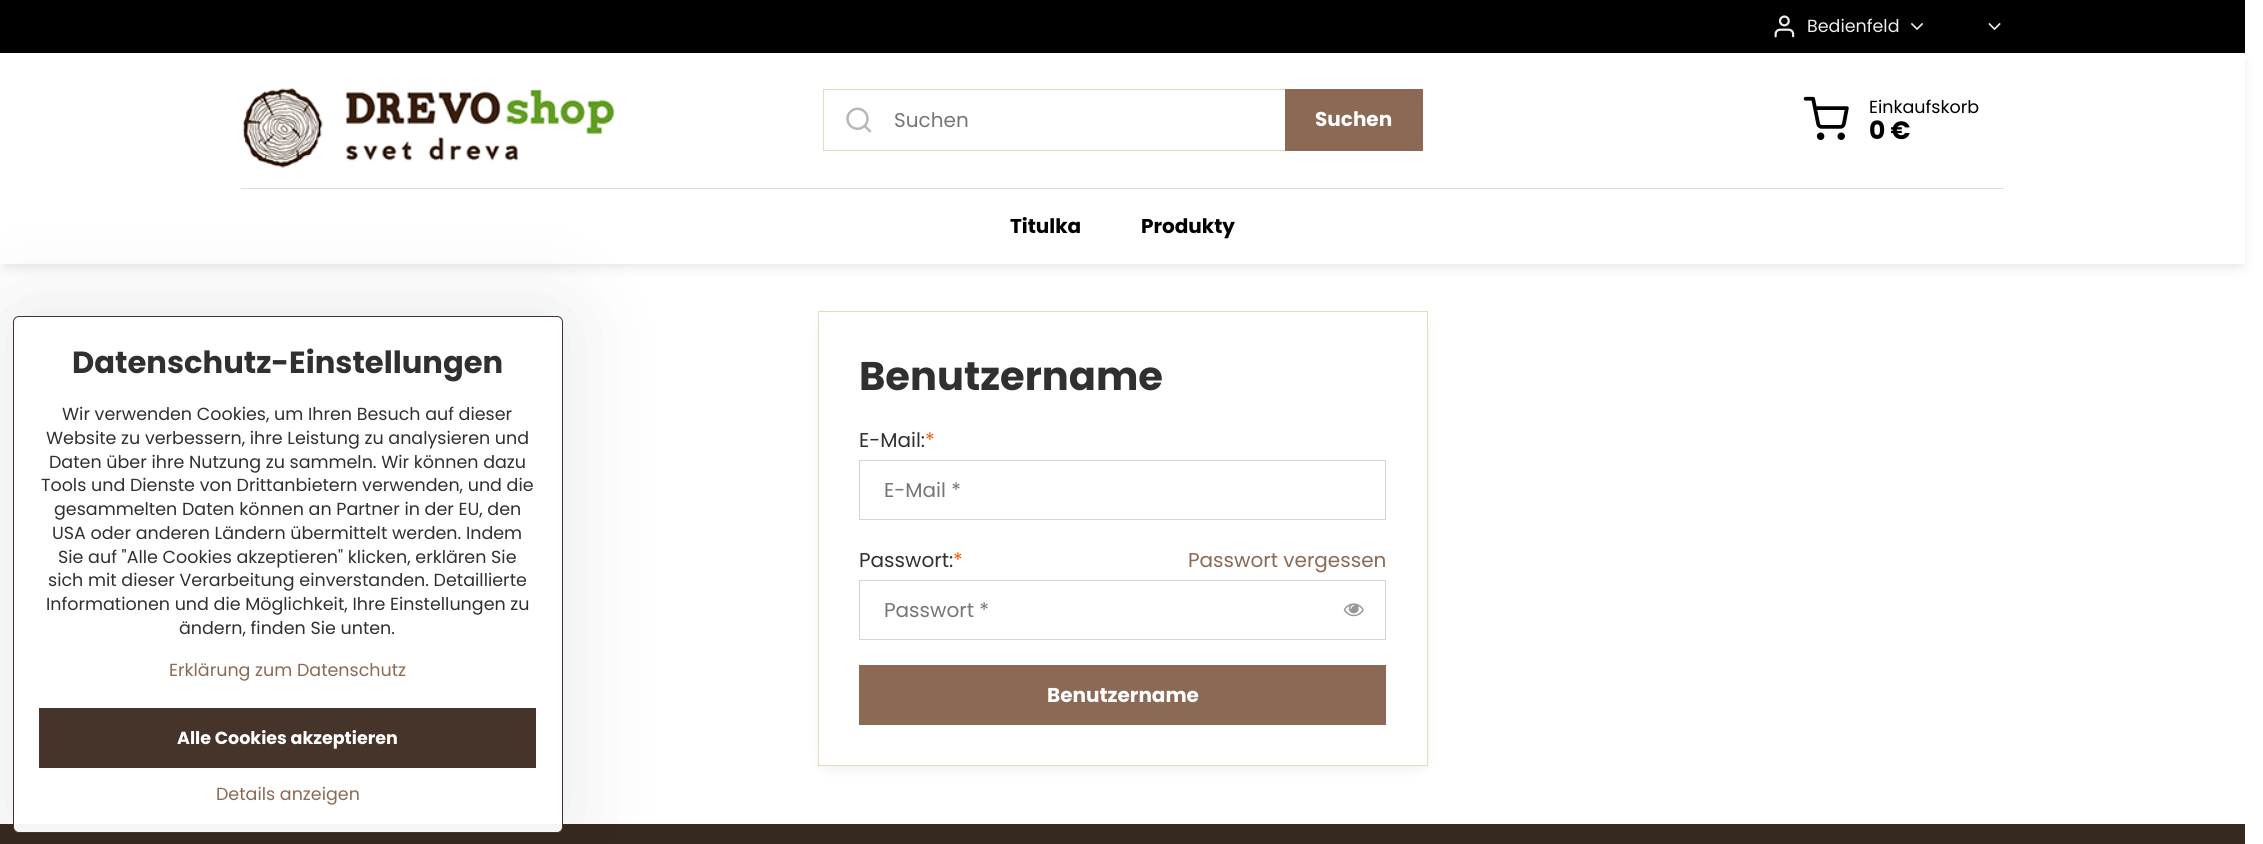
#include <cairo/cairo.h>
#include <math.h>
#include <stddef.h>

static cairo_t *cr;

static void use_color(int r, int g, int b) {
  cairo_set_source_rgb(cr, r / 255.0, g / 255.0, b / 255.0);
}

static void text(double x, double y, const char *s, const char *family, double size, int italic, int bold, int r, int g, int b) {
  cairo_select_font_face(cr, family, italic ? CAIRO_FONT_SLANT_ITALIC : CAIRO_FONT_SLANT_NORMAL,
    bold ? CAIRO_FONT_WEIGHT_BOLD : CAIRO_FONT_WEIGHT_NORMAL);
  cairo_set_font_size(cr, size);
  use_color(r, g, b);
  cairo_move_to(cr, x, y);
  cairo_show_text(cr, s);
}

static void box(double x, double y, double w, double h, int r, int g, int b) {
  use_color(r, g, b);
  cairo_rectangle(cr, x, y, w, h);
  cairo_fill(cr);
}

static void round_rect(double x, double y, double w, double h, double r) {
  cairo_new_sub_path(cr);
  cairo_arc(cr, x + w - r, y + h - r, r, 0, M_PI / 2);
  cairo_arc(cr, x + r, y + h - r, r, M_PI / 2, M_PI);
  cairo_arc(cr, x + r, y + r, r, M_PI, 1.5 * M_PI);
  cairo_arc(cr, x + w - r, y + r, r, 1.5 * M_PI, 2 * M_PI);
  cairo_close_path(cr);
}

static void shadow(double x, double y, double w, double h, double r, double blur, double alpha) {
  cairo_push_group_with_content(cr, CAIRO_CONTENT_ALPHA);
  cairo_set_operator(cr, CAIRO_OPERATOR_SOURCE);
  for (int i = 15; i >= -15 && fmin(w, h) + blur * i / 3 > 0; i -= 2) {
    double e = blur * i / 6;
    cairo_set_source_rgba(cr, 0, 0, 0, alpha * erfc((i - 1) / 8.5) / 2);
    round_rect(x - e, y - e, w + 2 * e, h + 2 * e, fmax(0, fmin(r + e + blur * .6, fmin(w, h) / 2 + e)));
    cairo_fill(cr);
  }
  cairo_pattern_t *soft = cairo_pop_group(cr);
  cairo_mask(cr, soft);
  cairo_pattern_destroy(soft);
}

static void picture(const char *path, double x, double y, double w, double h) {
  cairo_surface_t *image = cairo_image_surface_create_from_png(path);
  cairo_save(cr);
  cairo_set_source_surface(cr, image, x, y);
  cairo_rectangle(cr, x, y, w, h);
  cairo_fill(cr);
  cairo_restore(cr);
  cairo_surface_destroy(image);
}

static void draw(void) {
  use_color(255, 255, 255);
  cairo_paint(cr);
  box(0, 0, 2245, 53, 0, 0, 0);
  use_color(0, 0, 20);
  shadow(5, 63, 2235, 201, 0, 7.5, 0.15);
  box(0, 53, 2245, 211, 255, 255, 255);
  picture("img_04.png", 242, 88, 373, 80);
  box(241, 188, 1763, 1, 221, 221, 221);
  box(0, 824, 2245, 20, 54, 41, 32);
  cairo_save(cr);
  cairo_set_fill_rule(cr, CAIRO_FILL_RULE_EVEN_ODD);
  cairo_new_path(cr);
  cairo_move_to(cr, 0, 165);
  cairo_line_to(cr, 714, 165);
  cairo_line_to(cr, 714, 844);
  cairo_line_to(cr, 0, 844);
  cairo_close_path(cr);
  cairo_move_to(cr, 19, 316);
  cairo_line_to(cr, 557, 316);
  cairo_curve_to(cr, 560.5, 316, 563, 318.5, 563, 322);
  cairo_line_to(cr, 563, 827);
  cairo_curve_to(cr, 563, 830.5, 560.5, 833, 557, 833);
  cairo_line_to(cr, 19, 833);
  cairo_curve_to(cr, 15.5, 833, 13, 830.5, 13, 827);
  cairo_line_to(cr, 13, 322);
  cairo_curve_to(cr, 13, 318.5, 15.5, 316, 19, 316);
  cairo_close_path(cr);
  cairo_clip(cr);
  use_color(0, 0, 0);
  shadow(13, 316, 550, 517, 6, 50, 0.1);
  cairo_restore(cr);
  cairo_set_source_rgba(cr, 1, 1, 1, 0.95);
  round_rect(13.5, 316.5, 549, 516, 5.5);
  cairo_fill_preserve(cr);
  use_color(70, 52, 42);
  cairo_set_line_width(cr, 1);
  cairo_stroke(cr);
  box(39, 708, 497, 60, 70, 52, 42);
  picture("img_01.png", 1774, 15, 21, 23);
  picture("img_02.png", 1911, 23, 12, 7);
  picture("img_03.png", 1988, 23, 13, 7);
  cairo_rectangle(cr, 823.5, 89.5, 599, 61);
  use_color(230, 219, 190);
  cairo_stroke(cr);
  picture("img_05.png", 846, 107, 26, 26);
  box(1285, 89, 138, 62, 140, 105, 84);
  picture("img_06.png", 1803, 96, 46, 44);
  use_color(0, 0, 20);
  shadow(828, 326, 590, 435, 0, 10, 0.15);
  use_color(255, 255, 255);
  cairo_rectangle(cr, 818.5, 311.5, 609, 454);
  cairo_fill_preserve(cr);
  use_color(230, 219, 190);
  cairo_stroke(cr);
  cairo_rectangle(cr, 859.5, 460.5, 526, 59);
  use_color(210, 213, 216);
  cairo_stroke(cr);
  cairo_rectangle(cr, 859.5, 580.5, 526, 59);
  cairo_stroke(cr);
  picture("img_07.png", 1343, 603, 21, 14);
  box(859, 665, 527, 60, 140, 105, 84);
  text(72, 373, "Datenschutz-Einstellungen", "Poppins", 30.6, 0, 1, 48, 48, 48);
  text(62, 420, "Wir verwenden Cookies, um Ihren Besuch auf dieser", "Poppins", 17.5, 0, 0, 48, 48, 48);
  text(46, 444, "Website zu verbessern, ihre Leistung zu analysieren und", "Poppins", 17.5, 0, 0, 48, 48, 48);
  text(49, 468, "Daten über ihre Nutzung zu sammeln. Wir können dazu", "Poppins", 17.5, 0, 0, 48, 48, 48);
  text(41, 491, "Tools und Dienste von Drittanbietern verwenden, und die", "Poppins", 17.5, 0, 0, 48, 48, 48);
  text(54, 515, "gesammelten Daten können an Partner in der EU, den", "Poppins", 17.5, 0, 0, 48, 48, 48);
  text(52, 539, "USA oder anderen Ländern übermittelt werden. Indem", "Poppins", 17.5, 0, 0, 48, 48, 48);
  text(58, 563, "Sie auf \"Alle Cookies akzeptieren\" klicken, erklären Sie", "Poppins", 17.5, 0, 0, 48, 48, 48);
  text(48, 586, "sich mit dieser Verarbeitung einverstanden. Detaillierte", "Poppins", 17.5, 0, 0, 48, 48, 48);
  text(46, 610, "Informationen und die Möglichkeit, Ihre Einstellungen zu", "Poppins", 17.5, 0, 0, 48, 48, 48);
  text(179, 634, "ändern, finden Sie unten.", "Poppins", 17.5, 0, 0, 48, 48, 48);
  text(169, 676, "Erklärung zum Datenschutz", "Poppins", 17.5, 0, 0, 140, 105, 84);
  text(177, 744, "Alle Cookies akzeptieren", "Poppins", 17.5, 0, 1, 255, 255, 255);
  text(216, 800, "Details anzeigen", "Poppins", 17.5, 0, 0, 140, 105, 84);
  text(1807, 32, "Bedienfeld", "Poppins", 17.5, 0, 0, 238, 238, 238);
  text(894, 127, "Suchen", "Poppins", 20, 0, 0, 117, 117, 117);
  text(1315, 126, "Suchen", "Poppins", 20, 0, 1, 255, 255, 255);
  text(1869, 113, "Einkaufskorb", "Poppins", 17.5, 0, 0, 0, 0, 0);
  text(1869, 139, "0 €", "Poppins", 25, 0, 1, 0, 0, 0);
  text(1010, 233, "Titulka", "Poppins", 20, 0, 1, 0, 0, 0);
  text(1141, 233, "Produkty", "Poppins", 20, 0, 1, 0, 0, 0);
  text(859, 390, "Benutzername", "Poppins", 40, 0, 1, 48, 48, 48);
  text(859, 447, "E-Mail:", "Poppins", 20, 0, 0, 48, 48, 48);
  text(925, 447, "*", "Poppins", 20, 0, 0, 240, 94, 15);
  text(884, 497, "E-Mail *", "Poppins", 20, 0, 0, 117, 117, 117);
  text(859, 567, "Passwort:", "Poppins", 20, 0, 0, 48, 48, 48);
  text(953, 567, "*", "Poppins", 20, 0, 0, 240, 94, 15);
  text(884, 617, "Passwort *", "Poppins", 20, 0, 0, 117, 117, 117);
  text(1188, 567, "Passwort vergessen", "Poppins", 20, 0, 0, 140, 105, 84);
  text(1047, 702, "Benutzername", "Poppins", 20, 0, 1, 255, 255, 255);
}

int main(void) {
  cairo_surface_t *surface = cairo_image_surface_create(CAIRO_FORMAT_RGB24, 2263, 844);
  cr = cairo_create(surface);
  cairo_font_options_t *options = cairo_font_options_create();
  cairo_font_options_set_hint_metrics(options, CAIRO_HINT_METRICS_OFF);
  cairo_font_options_set_hint_style(options, CAIRO_HINT_STYLE_NONE);
  cairo_set_font_options(cr, options);
  cairo_set_miter_limit(cr, 4);
  draw();
  cairo_surface_write_to_png(surface, "out.png");
  cairo_font_options_destroy(options);
  cairo_destroy(cr);
  cairo_surface_destroy(surface);
  return 0;
}
